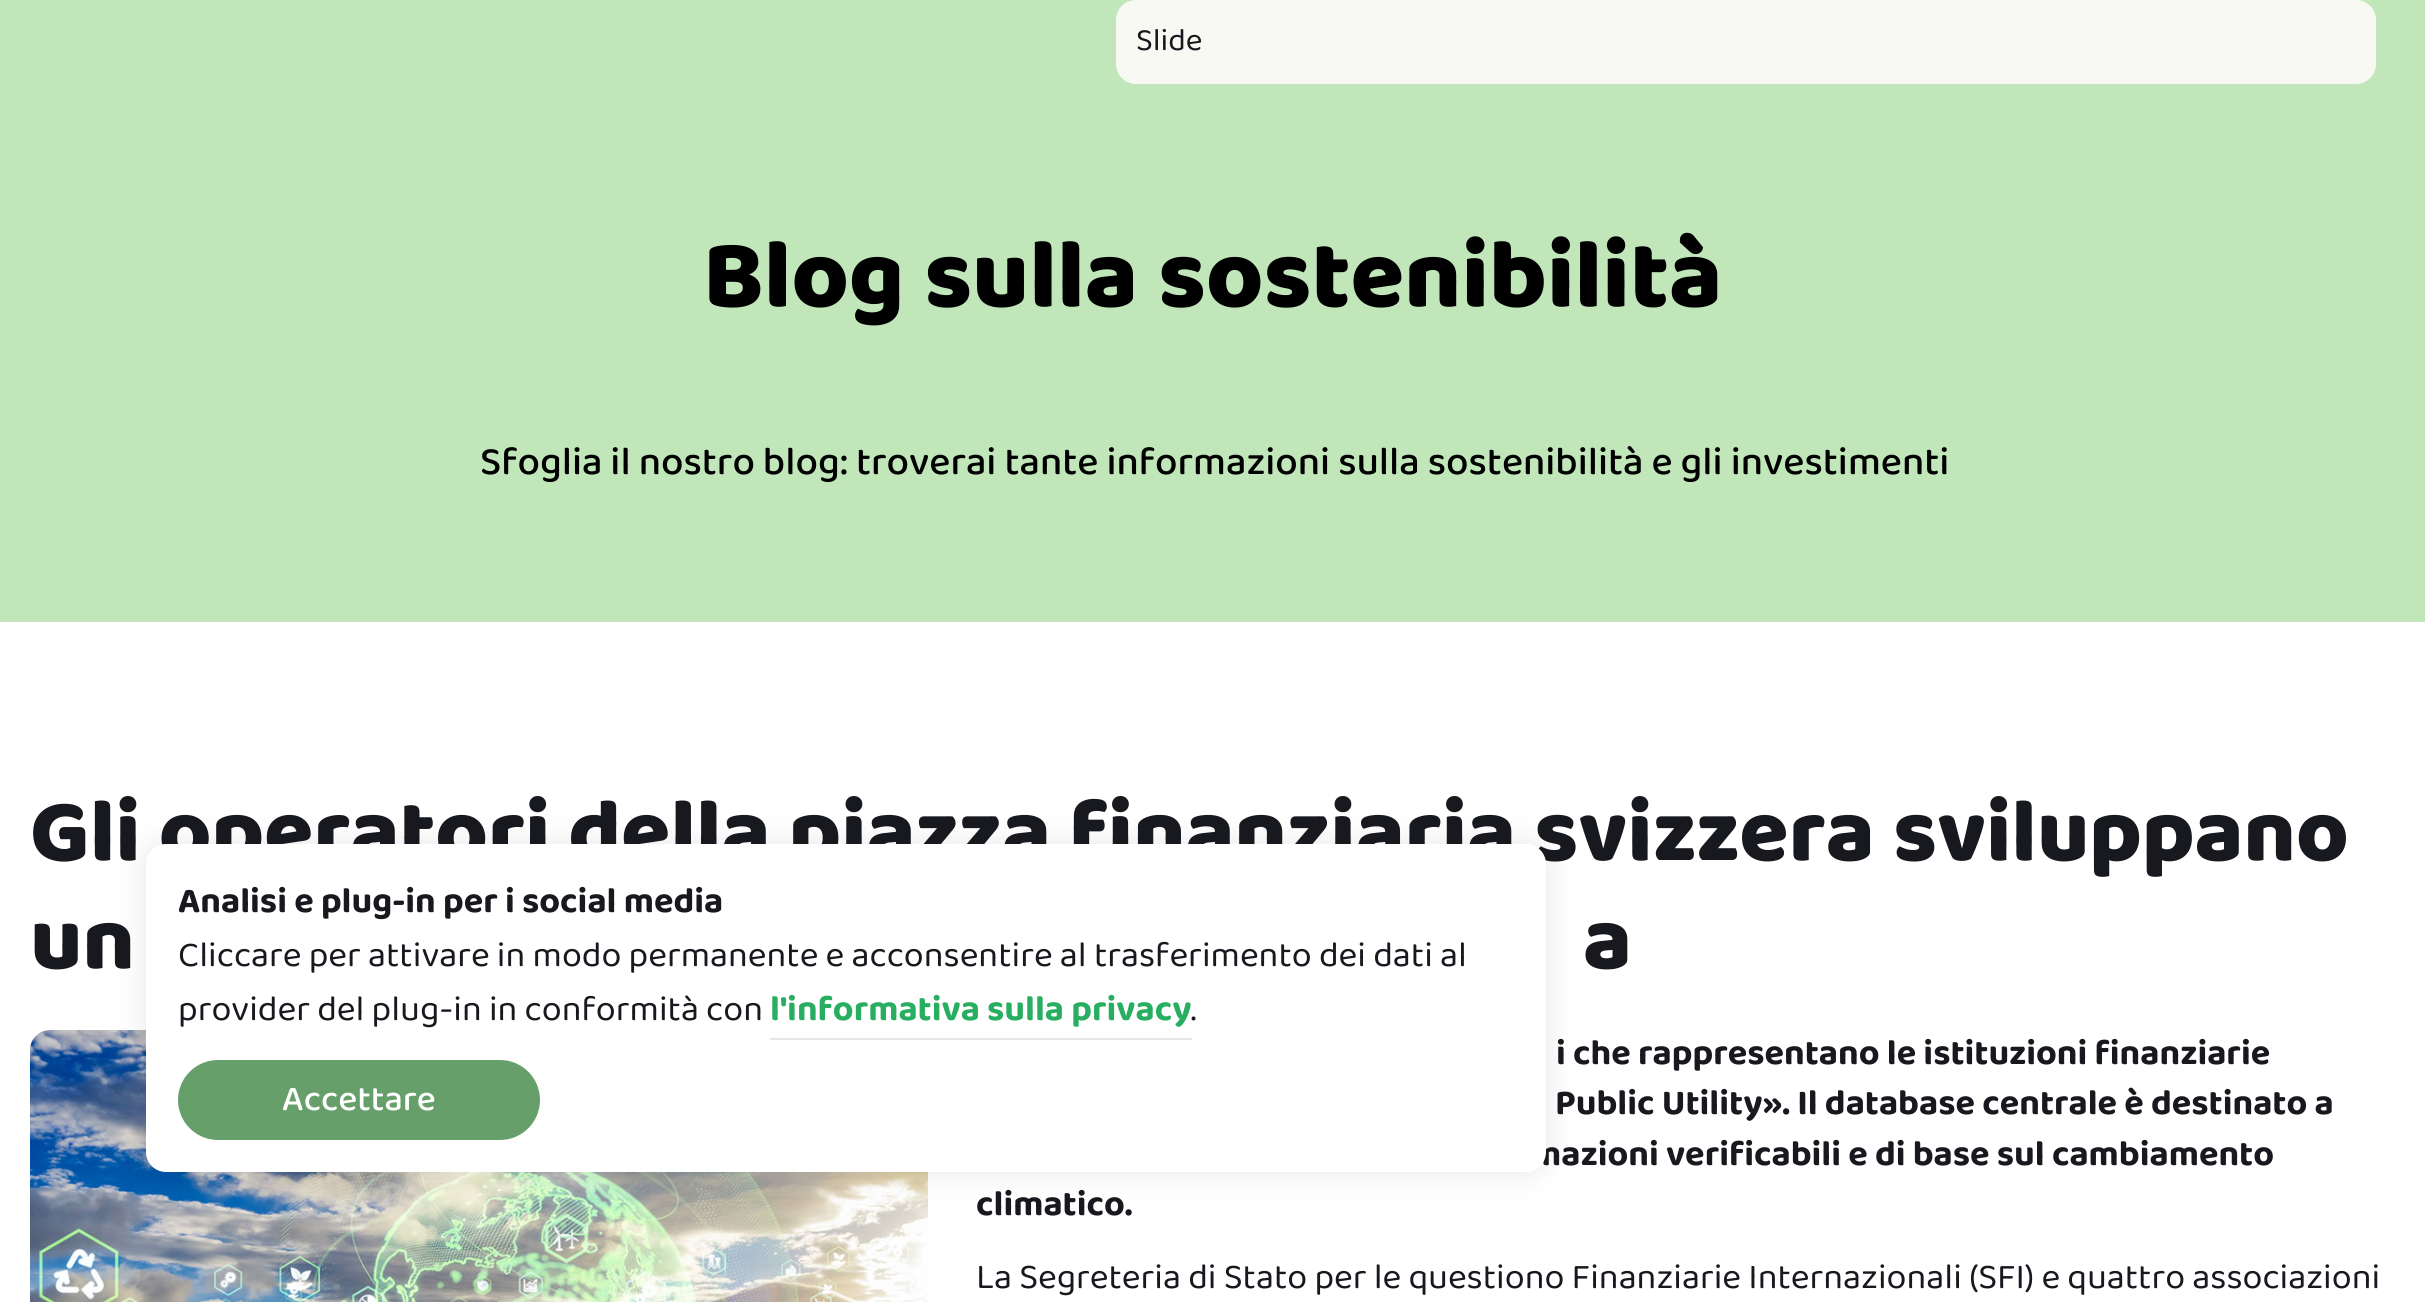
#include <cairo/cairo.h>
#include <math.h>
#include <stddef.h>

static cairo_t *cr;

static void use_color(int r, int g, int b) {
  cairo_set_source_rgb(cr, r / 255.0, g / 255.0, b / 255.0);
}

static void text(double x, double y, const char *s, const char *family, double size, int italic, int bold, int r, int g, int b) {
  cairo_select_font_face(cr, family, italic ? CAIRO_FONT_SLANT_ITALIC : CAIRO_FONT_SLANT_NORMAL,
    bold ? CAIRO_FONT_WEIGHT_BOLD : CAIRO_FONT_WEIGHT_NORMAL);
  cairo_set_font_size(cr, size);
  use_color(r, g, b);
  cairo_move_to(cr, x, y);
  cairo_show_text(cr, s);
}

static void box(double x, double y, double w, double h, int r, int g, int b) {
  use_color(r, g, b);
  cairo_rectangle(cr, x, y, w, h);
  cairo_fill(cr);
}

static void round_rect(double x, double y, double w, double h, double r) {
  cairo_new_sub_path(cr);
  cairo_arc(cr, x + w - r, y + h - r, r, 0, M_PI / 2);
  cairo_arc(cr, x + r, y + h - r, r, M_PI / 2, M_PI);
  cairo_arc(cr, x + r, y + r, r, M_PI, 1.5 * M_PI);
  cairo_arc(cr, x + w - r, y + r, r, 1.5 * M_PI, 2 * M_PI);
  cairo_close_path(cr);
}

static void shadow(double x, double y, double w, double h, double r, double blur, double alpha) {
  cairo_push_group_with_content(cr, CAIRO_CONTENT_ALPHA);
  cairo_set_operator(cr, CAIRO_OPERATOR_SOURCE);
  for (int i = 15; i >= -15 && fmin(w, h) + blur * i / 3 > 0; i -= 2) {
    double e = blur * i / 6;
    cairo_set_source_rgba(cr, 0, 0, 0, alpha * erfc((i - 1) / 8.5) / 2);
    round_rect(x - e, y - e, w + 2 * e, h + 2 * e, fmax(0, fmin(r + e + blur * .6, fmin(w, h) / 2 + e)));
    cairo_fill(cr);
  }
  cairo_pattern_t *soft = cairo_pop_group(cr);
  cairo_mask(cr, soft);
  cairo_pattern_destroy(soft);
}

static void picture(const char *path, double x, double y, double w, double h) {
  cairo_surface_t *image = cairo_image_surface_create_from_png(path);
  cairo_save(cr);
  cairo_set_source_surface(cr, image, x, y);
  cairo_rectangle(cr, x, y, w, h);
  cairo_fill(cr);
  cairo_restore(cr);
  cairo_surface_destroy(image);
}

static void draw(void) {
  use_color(255, 255, 255);
  cairo_paint(cr);
  box(0, 0, 2425, 622, 192, 230, 186);
  use_color(248, 249, 242);
  round_rect(1116, 0, 1260, 84, 20);
  cairo_fill(cr);
  picture("img_01.png", 30, 1030, 898, 272);
  use_color(0, 0, 0);
  shadow(146, 844, 1400, 328, 20, 15, 0.1);
  text(1136, 50, "Slide", "Baloo 2", 32, 0, 0, 24, 25, 31);
  text(703, 306, "Blog sulla sostenibilità", "Baloo 2 ExtraBold", 98, 0, 0, 0, 0, 0);
  text(480, 474, "Sfoglia il nostro blog: troverai tante informazioni sulla sostenibilità e gli investimenti", "Baloo 2 Medium", 40, 0, 0, 0, 0, 0);
  text(30, 860, "Gli operatori della piazza finanziaria svizzera sviluppano", "Baloo 2 ExtraBold", 90, 0, 0, 24, 25, 31);
  text(30, 968, "un", "Baloo 2 ExtraBold", 90, 0, 0, 24, 25, 31);
  text(1583, 968, "a", "Baloo 2 ExtraBold", 90, 0, 0, 24, 25, 31);
  text(1556, 1064, "i che rappresentano le istituzioni finanziarie", "Baloo 2", 36, 0, 1, 24, 25, 31);
  text(1555, 1114, "Public Utility». Il database centrale è destinato a", "Baloo 2", 36, 0, 1, 24, 25, 31);
  text(1531, 1165, "mazioni verificabili e di base sul cambiamento", "Baloo 2", 36, 0, 1, 24, 25, 31);
  text(976, 1215, "climatico.", "Baloo 2", 36, 0, 1, 24, 25, 31);
  text(976, 1288, "La Segreteria di Stato per le questiono Finanziarie Internazionali (SFI) e quattro associazioni", "Baloo 2", 36, 0, 0, 24, 25, 31);
  use_color(255, 255, 255);
  round_rect(146, 844, 1400, 328, 20);
  cairo_fill(cr);
  text(178, 912, "Analisi e plug-in per i social media", "Baloo 2", 36, 0, 1, 24, 25, 31);
  text(178, 966, "Cliccare per attivare in modo permanente e acconsentire al trasferimento dei dati al", "Baloo 2", 36, 0, 0, 24, 25, 31);
  text(178, 1020, "provider del plug-in in conformità con", "Baloo 2", 36, 0, 0, 24, 25, 31);
  box(770, 1038, 422, 2, 231, 231, 231);
  text(770, 1020, "l'informativa sulla privacy", "Baloo 2", 36, 0, 1, 39, 174, 96);
  text(1191, 1020, ".", "Baloo 2", 36, 0, 0, 24, 25, 31);
  use_color(102, 159, 106);
  round_rect(178, 1060, 362, 80, 40);
  cairo_fill(cr);
  text(282, 1110, "Accettare", "Baloo 2 Medium", 36, 0, 0, 255, 255, 255);
}

int main(void) {
  cairo_surface_t *surface = cairo_image_surface_create(CAIRO_FORMAT_RGB24, 2425, 1302);
  cr = cairo_create(surface);
  cairo_font_options_t *options = cairo_font_options_create();
  cairo_font_options_set_hint_metrics(options, CAIRO_HINT_METRICS_OFF);
  cairo_font_options_set_hint_style(options, CAIRO_HINT_STYLE_NONE);
  cairo_set_font_options(cr, options);
  cairo_set_miter_limit(cr, 4);
  draw();
  cairo_surface_write_to_png(surface, "out.png");
  cairo_font_options_destroy(options);
  cairo_destroy(cr);
  cairo_surface_destroy(surface);
  return 0;
}
